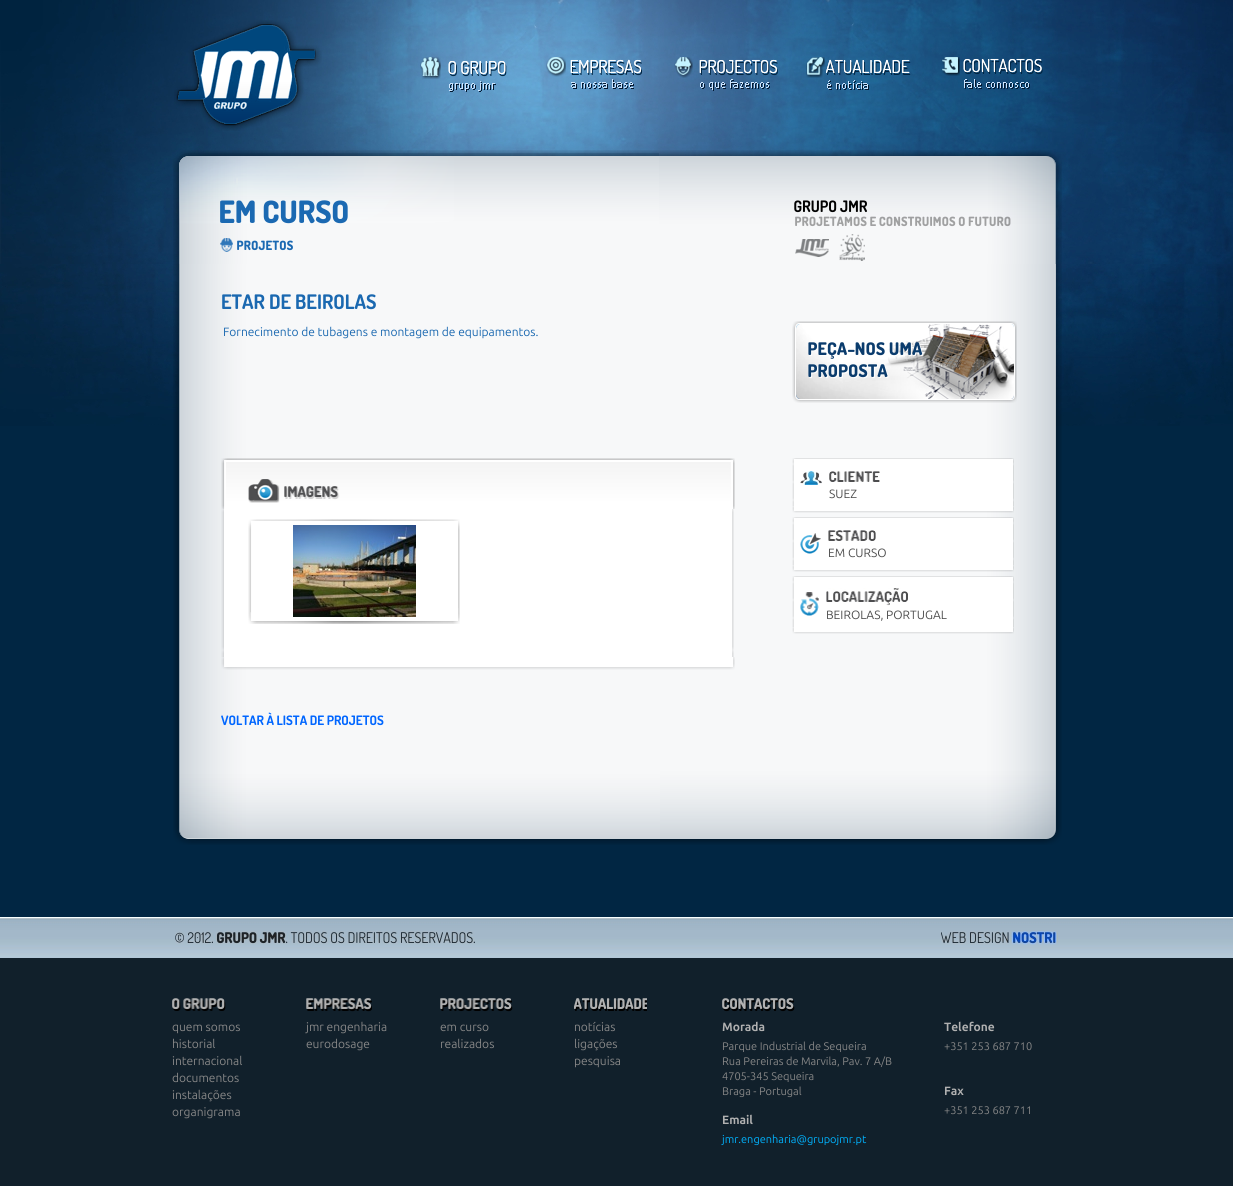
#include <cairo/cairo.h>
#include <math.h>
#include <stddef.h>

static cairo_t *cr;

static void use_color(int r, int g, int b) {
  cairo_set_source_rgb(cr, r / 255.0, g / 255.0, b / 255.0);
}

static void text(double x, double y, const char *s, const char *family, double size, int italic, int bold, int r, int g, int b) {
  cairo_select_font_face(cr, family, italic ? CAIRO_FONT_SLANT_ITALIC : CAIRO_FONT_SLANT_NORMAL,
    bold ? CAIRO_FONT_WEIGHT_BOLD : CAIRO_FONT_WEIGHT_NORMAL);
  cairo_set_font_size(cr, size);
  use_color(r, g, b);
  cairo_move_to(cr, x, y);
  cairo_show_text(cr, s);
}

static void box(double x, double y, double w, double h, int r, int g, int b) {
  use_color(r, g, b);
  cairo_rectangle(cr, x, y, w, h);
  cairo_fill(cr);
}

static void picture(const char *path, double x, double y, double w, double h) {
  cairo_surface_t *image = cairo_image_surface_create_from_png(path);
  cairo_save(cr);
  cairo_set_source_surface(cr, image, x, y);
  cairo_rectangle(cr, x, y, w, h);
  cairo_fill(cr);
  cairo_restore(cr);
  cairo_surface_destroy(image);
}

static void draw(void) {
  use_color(1, 38, 67);
  cairo_paint(cr);
  picture("img_01.png", 0, 0, 1233, 264);
  picture("img_02.png", 174, 20, 148, 111);
  picture("img_03.png", 420, 57, 87, 35);
  picture("img_04.png", 546, 57, 97, 32);
  picture("img_05.png", 674, 57, 104, 34);
  picture("img_06.png", 806, 57, 105, 33);
  picture("img_07.png", 941, 57, 102, 32);
  picture("img_08.png", 173, 150, 889, 114);
  picture("img_09.png", 220, 200, 128, 52);
  picture("img_10.png", 794, 200, 217, 61);
  picture("img_11.png", 0, 264, 1233, 162);
  picture("img_12.png", 173, 264, 889, 493);
  picture("img_13.png", 221, 458, 514, 51);
  picture("img_14.png", 221, 509, 513, 148);
  picture("img_15.png", 248, 519, 212, 105);
  picture("img_16.png", 293, 525, 123, 92);
  picture("img_17.png", 221, 657, 514, 13);
  picture("img_18.png", 792, 321, 225, 82);
  picture("img_19.png", 792, 458, 222, 6);
  picture("img_20.png", 792, 464, 222, 42);
  picture("img_21.png", 800, 471, 22, 14);
  picture("img_22.png", 829, 471, 51, 11);
  picture("img_23.png", 792, 506, 222, 7);
  picture("img_19.png", 792, 517, 222, 6);
  picture("img_20.png", 792, 523, 222, 42);
  picture("img_24.png", 800, 533, 21, 21);
  picture("img_25.png", 828, 530, 48, 11);
  picture("img_23.png", 792, 565, 222, 7);
  picture("img_19.png", 792, 576, 222, 6);
  picture("img_26.png", 792, 582, 222, 45);
  picture("img_27.png", 800, 592, 19, 24);
  picture("img_28.png", 826, 588, 82, 18);
  picture("img_23.png", 792, 627, 222, 7);
  picture("img_29.png", 173, 757, 889, 88);
  picture("img_30.png", 0, 917, 1233, 41);
  picture("img_31.png", 175, 931, 300, 13);
  picture("img_32.png", 940, 931, 118, 14);
  box(0, 958, 1233, 228, 17, 32, 43);
  picture("img_33.png", 172, 998, 54, 13);
  picture("img_34.png", 306, 998, 66, 14);
  picture("img_35.png", 440, 998, 73, 14);
  picture("img_36.png", 574, 998, 73, 13);
  picture("img_37.png", 722, 998, 73, 14);
  text(221, 309, "ETAR DE BEIROLAS", "Dosis", 20, 0, 1, 26, 104, 176);
  text(223, 336, "Fornecimento de tubagens e montagem de equipamentos.", "Ubuntu", 12, 0, 0, 26, 104, 176);
  text(221, 725, "VOLTAR À LISTA DE PROJETOS", "Dosis", 13, 0, 1, 0, 102, 255);
  text(829, 498, "SUEZ", "Ubuntu", 12, 0, 0, 77, 77, 77);
  text(828, 557, "EM CURSO", "Ubuntu", 12, 0, 0, 77, 77, 77);
  text(826, 619, "BEIROLAS, PORTUGAL", "Ubuntu", 12, 0, 0, 77, 77, 77);
  text(172, 1031, "quem somos", "Ubuntu", 12, 0, 0, 135, 135, 135);
  text(172, 1048, "historial", "Ubuntu", 12, 0, 0, 135, 135, 135);
  text(172, 1065, "internacional", "Ubuntu", 12, 0, 0, 135, 135, 135);
  text(172, 1082, "documentos", "Ubuntu", 12, 0, 0, 135, 135, 135);
  text(172, 1099, "instalações", "Ubuntu", 12, 0, 0, 135, 135, 135);
  text(172, 1116, "organigrama", "Ubuntu", 12, 0, 0, 135, 135, 135);
  text(306, 1031, "jmr engenharia", "Ubuntu", 12, 0, 0, 135, 135, 135);
  text(306, 1048, "eurodosage", "Ubuntu", 12, 0, 0, 135, 135, 135);
  text(440, 1031, "em curso", "Ubuntu", 12, 0, 0, 135, 135, 135);
  text(440, 1048, "realizados", "Ubuntu", 12, 0, 0, 135, 135, 135);
  text(574, 1031, "notícias", "Ubuntu", 12, 0, 0, 135, 135, 135);
  text(574, 1048, "ligações", "Ubuntu", 12, 0, 0, 135, 135, 135);
  text(574, 1065, "pesquisa", "Ubuntu", 12, 0, 0, 135, 135, 135);
  text(722, 1031, "Morada", "Ubuntu", 12, 0, 1, 177, 177, 177);
  text(722, 1050, "Parque Industrial de Sequeira", "Ubuntu", 11, 0, 0, 135, 135, 135);
  text(722, 1065, "Rua Pereiras de Marvila, Pav. 7 A/B", "Ubuntu", 11, 0, 0, 135, 135, 135);
  text(722, 1080, "4705-345 Sequeira", "Ubuntu", 11, 0, 0, 135, 135, 135);
  text(722, 1095, "Braga - Portugal", "Ubuntu", 11, 0, 0, 135, 135, 135);
  text(722, 1124, "Email", "Ubuntu", 12, 0, 1, 177, 177, 177);
  text(722, 1143, "jmr.engenharia@grupojmr.pt", "Ubuntu", 11, 0, 0, 0, 179, 255);
  text(944, 1031, "Telefone", "Ubuntu", 12, 0, 1, 177, 177, 177);
  text(944, 1050, "+351 253 687 710", "Ubuntu", 11, 0, 0, 135, 135, 135);
  text(944, 1095, "Fax", "Ubuntu", 12, 0, 1, 177, 177, 177);
  text(944, 1114, "+351 253 687 711", "Ubuntu", 11, 0, 0, 135, 135, 135);
}

int main(void) {
  cairo_surface_t *surface = cairo_image_surface_create(CAIRO_FORMAT_RGB24, 1233, 1186);
  cr = cairo_create(surface);
  cairo_font_options_t *options = cairo_font_options_create();
  cairo_font_options_set_hint_metrics(options, CAIRO_HINT_METRICS_OFF);
  cairo_font_options_set_hint_style(options, CAIRO_HINT_STYLE_NONE);
  cairo_set_font_options(cr, options);
  cairo_set_miter_limit(cr, 4);
  draw();
  cairo_surface_write_to_png(surface, "out.png");
  cairo_font_options_destroy(options);
  cairo_destroy(cr);
  cairo_surface_destroy(surface);
  return 0;
}
